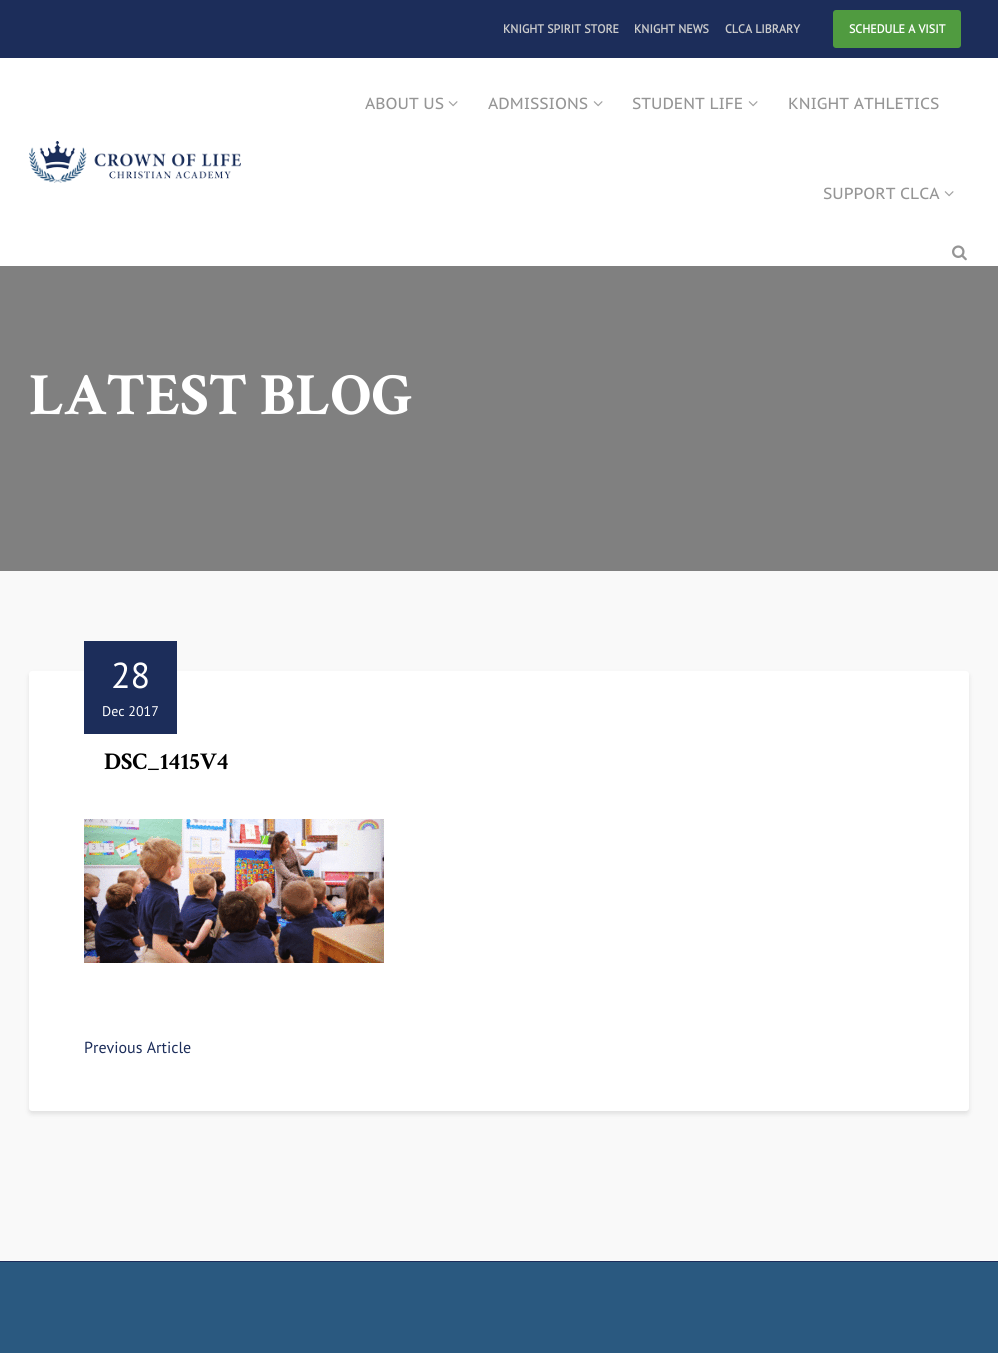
#include <cairo/cairo.h>
#include <math.h>
#include <stddef.h>

static cairo_t *cr;

static void use_color(int r, int g, int b) {
  cairo_set_source_rgb(cr, r / 255.0, g / 255.0, b / 255.0);
}

static void text(double x, double y, const char *s, const char *family, double size, int italic, int bold, int r, int g, int b) {
  cairo_select_font_face(cr, family, italic ? CAIRO_FONT_SLANT_ITALIC : CAIRO_FONT_SLANT_NORMAL,
    bold ? CAIRO_FONT_WEIGHT_BOLD : CAIRO_FONT_WEIGHT_NORMAL);
  cairo_set_font_size(cr, size);
  use_color(r, g, b);
  cairo_move_to(cr, x, y);
  cairo_show_text(cr, s);
}

static void box(double x, double y, double w, double h, int r, int g, int b) {
  use_color(r, g, b);
  cairo_rectangle(cr, x, y, w, h);
  cairo_fill(cr);
}

static void round_rect(double x, double y, double w, double h, double r) {
  cairo_new_sub_path(cr);
  cairo_arc(cr, x + w - r, y + h - r, r, 0, M_PI / 2);
  cairo_arc(cr, x + r, y + h - r, r, M_PI / 2, M_PI);
  cairo_arc(cr, x + r, y + r, r, M_PI, 1.5 * M_PI);
  cairo_arc(cr, x + w - r, y + r, r, 1.5 * M_PI, 2 * M_PI);
  cairo_close_path(cr);
}

static void shadow(double x, double y, double w, double h, double r, double blur, double alpha) {
  cairo_push_group_with_content(cr, CAIRO_CONTENT_ALPHA);
  cairo_set_operator(cr, CAIRO_OPERATOR_SOURCE);
  for (int i = 15; i >= -15 && fmin(w, h) + blur * i / 3 > 0; i -= 2) {
    double e = blur * i / 6;
    cairo_set_source_rgba(cr, 0, 0, 0, alpha * erfc((i - 1) / 8.5) / 2);
    round_rect(x - e, y - e, w + 2 * e, h + 2 * e, fmax(0, fmin(r + e + blur * .6, fmin(w, h) / 2 + e)));
    cairo_fill(cr);
  }
  cairo_pattern_t *soft = cairo_pop_group(cr);
  cairo_mask(cr, soft);
  cairo_pattern_destroy(soft);
}

static void picture(const char *path, double x, double y, double w, double h) {
  cairo_surface_t *image = cairo_image_surface_create_from_png(path);
  cairo_save(cr);
  cairo_set_source_surface(cr, image, x, y);
  cairo_rectangle(cr, x, y, w, h);
  cairo_fill(cr);
  cairo_restore(cr);
  cairo_surface_destroy(image);
}

static void draw(void) {
  use_color(249, 249, 249);
  cairo_paint(cr);
  box(0, 0, 998, 58, 28, 45, 90);
  use_color(80, 155, 64);
  round_rect(833, 10, 128, 38, 3);
  cairo_fill(cr);
  box(0, 58, 998, 208, 255, 255, 255);
  picture("img_01.png", 29, 141, 212, 42);
  picture("img_02.png", 448, 101, 10, 6);
  picture("img_02.png", 593, 101, 10, 6);
  picture("img_02.png", 748, 101, 10, 6);
  picture("img_02.png", 944, 191, 10, 6);
  picture("img_03.png", 952, 245, 15, 16);
  box(0, 266, 998, 305, 128, 128, 128);
  use_color(0, 0, 0);
  shadow(29, 674, 940, 440, 3, 2.5, 0.1);
  use_color(255, 255, 255);
  round_rect(29, 671, 940, 440, 3);
  cairo_fill(cr);
  box(84, 641, 93, 93, 28, 45, 90);
  picture("img_04.png", 84, 819, 300, 144);
  box(0, 1262, 998, 91, 42, 89, 128);
  box(0, 1261, 998, 1, 28, 45, 90);
  text(503, 33, "KNIGHT SPIRIT STORE", "PT Sans", 12, 0, 1, 204, 204, 204);
  text(634, 33, "KNIGHT NEWS", "PT Sans", 12, 0, 1, 204, 204, 204);
  text(725, 33, "CLCA LIBRARY", "PT Sans", 12, 0, 1, 204, 204, 204);
  text(849, 33, "SCHEDULE A VISIT", "PT Sans", 12, 0, 1, 255, 255, 255);
  text(365, 109, "ABOUT US", "PT Sans Caption", 16, 0, 0, 149, 149, 149);
  text(488, 109, "ADMISSIONS", "PT Sans Caption", 16, 0, 0, 149, 149, 149);
  text(632, 109, "STUDENT LIFE", "PT Sans Caption", 16, 0, 0, 149, 149, 149);
  text(788, 109, "KNIGHT ATHLETICS", "PT Sans Caption", 16, 0, 0, 149, 149, 149);
  text(823, 199, "SUPPORT CLCA", "PT Sans Caption", 16, 0, 0, 149, 149, 149);
  text(29, 414, "LATEST BLOG", "Crimson Text", 60, 0, 1, 255, 255, 255);
  text(111, 688, "28", "PT Sans", 36, 0, 0, 255, 255, 255);
  text(102, 716, "Dec 2017", "PT Sans", 14, 0, 0, 255, 255, 255);
  text(104, 769, "DSC_1415V4", "Crimson Text", 24, 0, 1, 0, 0, 0);
  text(84, 1053, "Previous Article", "PT Sans", 16, 0, 0, 28, 45, 90);
}

int main(void) {
  cairo_surface_t *surface = cairo_image_surface_create(CAIRO_FORMAT_RGB24, 998, 1353);
  cr = cairo_create(surface);
  cairo_font_options_t *options = cairo_font_options_create();
  cairo_font_options_set_hint_metrics(options, CAIRO_HINT_METRICS_OFF);
  cairo_font_options_set_hint_style(options, CAIRO_HINT_STYLE_NONE);
  cairo_set_font_options(cr, options);
  cairo_set_miter_limit(cr, 4);
  draw();
  cairo_surface_write_to_png(surface, "out.png");
  cairo_font_options_destroy(options);
  cairo_destroy(cr);
  cairo_surface_destroy(surface);
  return 0;
}
